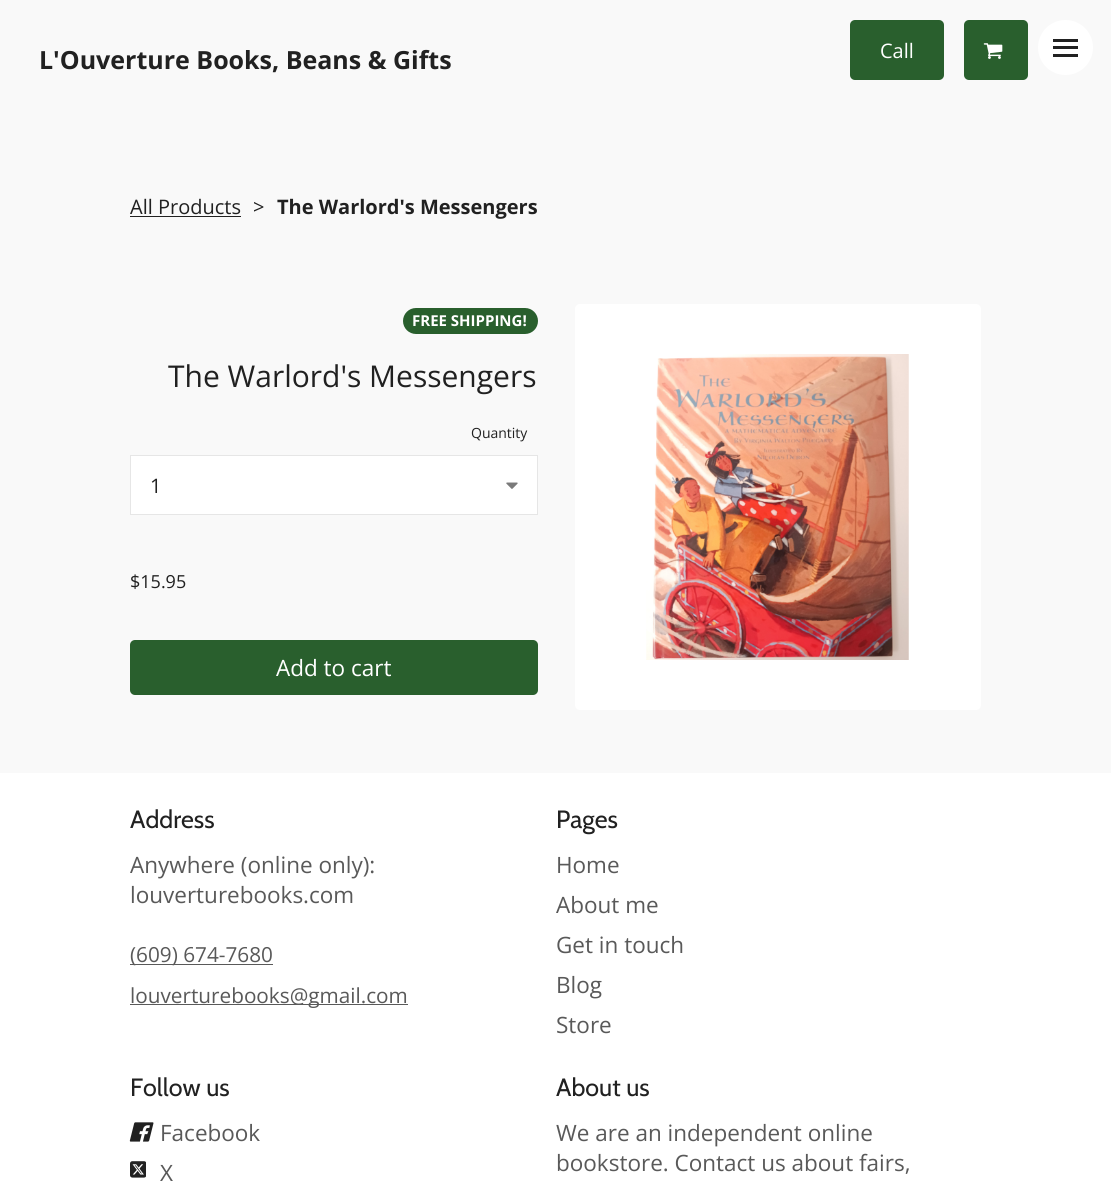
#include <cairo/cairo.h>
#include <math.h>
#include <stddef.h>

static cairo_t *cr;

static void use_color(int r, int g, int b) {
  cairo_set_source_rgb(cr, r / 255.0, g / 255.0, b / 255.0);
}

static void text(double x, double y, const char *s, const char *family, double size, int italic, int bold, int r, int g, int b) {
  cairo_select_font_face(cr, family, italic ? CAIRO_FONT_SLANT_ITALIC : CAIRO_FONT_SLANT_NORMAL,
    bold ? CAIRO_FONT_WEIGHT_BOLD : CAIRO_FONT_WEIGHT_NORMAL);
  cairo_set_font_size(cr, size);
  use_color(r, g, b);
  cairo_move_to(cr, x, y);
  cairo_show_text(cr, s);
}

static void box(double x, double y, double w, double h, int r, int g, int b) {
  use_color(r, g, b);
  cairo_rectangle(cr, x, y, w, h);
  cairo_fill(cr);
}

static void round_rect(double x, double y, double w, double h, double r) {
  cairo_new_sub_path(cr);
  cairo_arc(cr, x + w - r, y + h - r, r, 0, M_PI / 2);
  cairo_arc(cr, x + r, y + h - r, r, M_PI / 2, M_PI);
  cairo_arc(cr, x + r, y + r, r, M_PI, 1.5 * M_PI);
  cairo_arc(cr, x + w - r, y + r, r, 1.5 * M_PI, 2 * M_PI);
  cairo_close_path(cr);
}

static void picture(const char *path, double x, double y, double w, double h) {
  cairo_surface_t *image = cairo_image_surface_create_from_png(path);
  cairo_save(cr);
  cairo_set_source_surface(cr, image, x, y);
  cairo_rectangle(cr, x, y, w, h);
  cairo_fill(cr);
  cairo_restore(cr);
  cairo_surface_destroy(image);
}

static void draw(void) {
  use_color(255, 255, 255);
  cairo_paint(cr);
  box(0, 0, 1111, 773, 249, 249, 249);
  use_color(41, 95, 45);
  round_rect(850, 20, 94, 60, 5);
  cairo_fill(cr);
  round_rect(964, 20, 64, 60, 5);
  cairo_fill(cr);
  picture("img_01.png", 983, 43, 20, 16);
  use_color(255, 255, 255);
  cairo_arc(cr, 1065.5, 47.5, 27.5, 0, 2 * M_PI);
  cairo_fill(cr);
  box(1053, 39, 25, 3, 33, 33, 33);
  box(1053, 46, 25, 3, 33, 33, 33);
  box(1053, 54, 25, 3, 33, 33, 33);
  box(130, 216, 111, 1, 33, 33, 33);
  use_color(41, 95, 45);
  round_rect(403, 308, 135, 26, 13);
  cairo_fill(cr);
  use_color(255, 255, 255);
  cairo_rectangle(cr, 130.5, 455.5, 407, 59);
  cairo_fill_preserve(cr);
  use_color(230, 230, 230);
  cairo_set_line_width(cr, 1);
  cairo_stroke(cr);
  picture("img_02.png", 506, 482, 12, 7);
  use_color(41, 95, 45);
  round_rect(130, 640, 408, 55, 5);
  cairo_fill(cr);
  use_color(255, 255, 255);
  round_rect(575, 304, 406, 406, 5);
  cairo_fill(cr);
  picture("img_03.png", 646, 354, 263, 306);
  box(130, 964, 143, 1, 89, 89, 89);
  box(130, 1004, 278, 1, 89, 89, 89);
  picture("img_04.png", 129, 1122, 25, 20);
  picture("img_05.png", 130, 1161, 16, 17);
  text(39, 69, "L'Ouverture Books, Beans & Gifts", "Open Sans", 25, 0, 1, 33, 33, 33);
  text(880, 58, "Call", "Open Sans", 20, 0, 0, 255, 255, 255);
  text(130, 214, "All Products", "Open Sans", 20, 0, 0, 33, 33, 33);
  text(253, 214, ">", "Open Sans", 20, 0, 0, 33, 33, 33);
  text(277, 214, "The Warlord's Messengers", "Open Sans", 20, 0, 1, 33, 33, 33);
  text(412, 326, "FREE SHIPPING!", "Open Sans", 15, 0, 1, 255, 255, 255);
  text(168, 387, "The Warlord's Messengers", "Open Sans", 30, 0, 0, 33, 33, 33);
  text(471, 438, "Quantity", "Open Sans", 14, 0, 0, 33, 33, 33);
  text(150, 493, "1", "Open Sans", 20, 0, 0, 33, 33, 33);
  text(130, 588, "$15.95", "Open Sans", 18, 0, 0, 33, 33, 33);
  text(276, 676, "Add to cart", "Open Sans", 22.5, 0, 0, 255, 255, 255);
  text(130, 828, "Address", "Cabin", 25, 0, 0, 33, 33, 33);
  text(130, 873, "Anywhere (online only):", "Open Sans", 22.5, 0, 0, 89, 89, 89);
  text(130, 903, "louverturebooks.com", "Open Sans", 22.5, 0, 0, 89, 89, 89);
  text(130, 962, "(609) 674-7680", "Open Sans", 20.75, 0, 0, 89, 89, 89);
  text(130, 1003, "louverturebooks@gmail.com", "Open Sans", 20.75, 0, 0, 89, 89, 89);
  text(556, 828, "Pages", "Cabin", 25, 0, 0, 33, 33, 33);
  text(556, 873, "Home", "Open Sans", 22.5, 0, 0, 89, 89, 89);
  text(556, 913, "About me", "Open Sans", 22.5, 0, 0, 89, 89, 89);
  text(556, 953, "Get in touch", "Open Sans", 22.5, 0, 0, 89, 89, 89);
  text(556, 993, "Blog", "Open Sans", 22.5, 0, 0, 89, 89, 89);
  text(556, 1033, "Store", "Open Sans", 22.5, 0, 0, 89, 89, 89);
  text(130, 1096, "Follow us", "Cabin", 25, 0, 0, 33, 33, 33);
  text(160, 1141, "Facebook", "Open Sans", 22.5, 0, 0, 89, 89, 89);
  text(160, 1181, "X", "Open Sans", 22.5, 0, 0, 89, 89, 89);
  text(556, 1096, "About us", "Cabin", 25, 0, 0, 33, 33, 33);
  text(556, 1141, "We are an independent online", "Open Sans", 22.5, 0, 0, 89, 89, 89);
  text(556, 1171, "bookstore. Contact us about fairs,", "Open Sans", 22.5, 0, 0, 89, 89, 89);
}

int main(void) {
  cairo_surface_t *surface = cairo_image_surface_create(CAIRO_FORMAT_RGB24, 1111, 1187);
  cr = cairo_create(surface);
  cairo_font_options_t *options = cairo_font_options_create();
  cairo_font_options_set_hint_metrics(options, CAIRO_HINT_METRICS_OFF);
  cairo_font_options_set_hint_style(options, CAIRO_HINT_STYLE_NONE);
  cairo_set_font_options(cr, options);
  cairo_set_miter_limit(cr, 4);
  draw();
  cairo_surface_write_to_png(surface, "out.png");
  cairo_font_options_destroy(options);
  cairo_destroy(cr);
  cairo_surface_destroy(surface);
  return 0;
}
